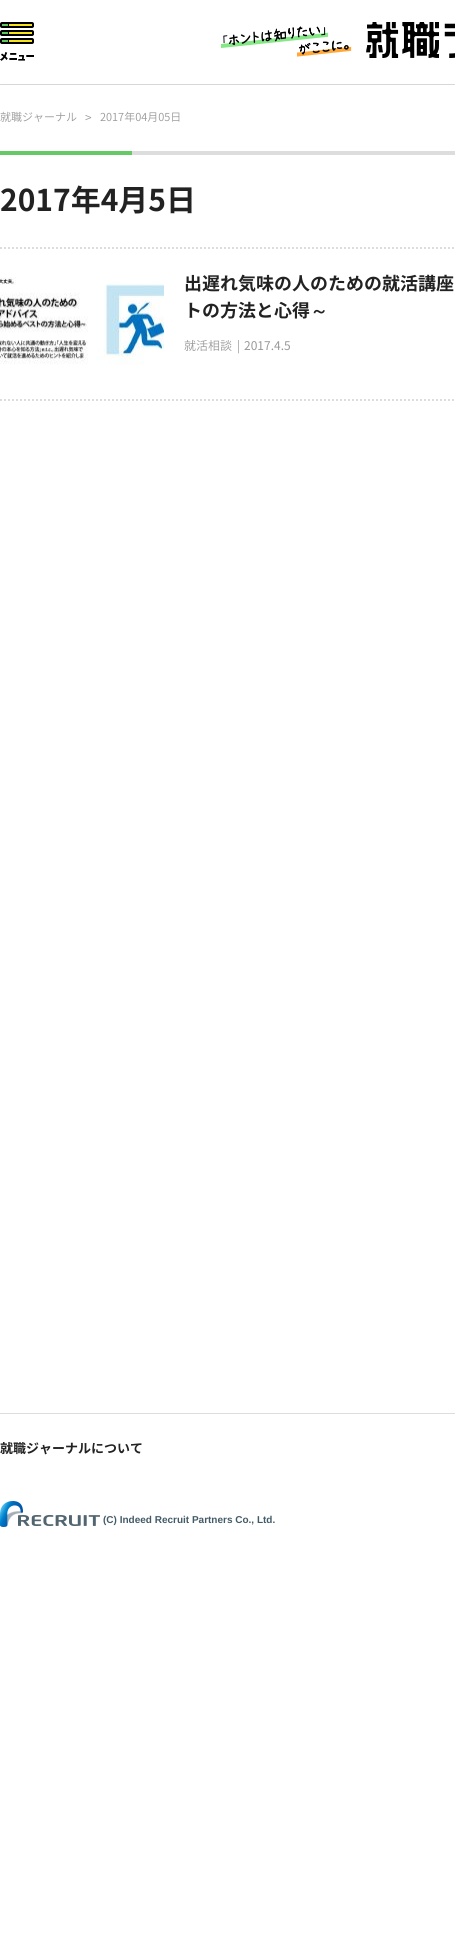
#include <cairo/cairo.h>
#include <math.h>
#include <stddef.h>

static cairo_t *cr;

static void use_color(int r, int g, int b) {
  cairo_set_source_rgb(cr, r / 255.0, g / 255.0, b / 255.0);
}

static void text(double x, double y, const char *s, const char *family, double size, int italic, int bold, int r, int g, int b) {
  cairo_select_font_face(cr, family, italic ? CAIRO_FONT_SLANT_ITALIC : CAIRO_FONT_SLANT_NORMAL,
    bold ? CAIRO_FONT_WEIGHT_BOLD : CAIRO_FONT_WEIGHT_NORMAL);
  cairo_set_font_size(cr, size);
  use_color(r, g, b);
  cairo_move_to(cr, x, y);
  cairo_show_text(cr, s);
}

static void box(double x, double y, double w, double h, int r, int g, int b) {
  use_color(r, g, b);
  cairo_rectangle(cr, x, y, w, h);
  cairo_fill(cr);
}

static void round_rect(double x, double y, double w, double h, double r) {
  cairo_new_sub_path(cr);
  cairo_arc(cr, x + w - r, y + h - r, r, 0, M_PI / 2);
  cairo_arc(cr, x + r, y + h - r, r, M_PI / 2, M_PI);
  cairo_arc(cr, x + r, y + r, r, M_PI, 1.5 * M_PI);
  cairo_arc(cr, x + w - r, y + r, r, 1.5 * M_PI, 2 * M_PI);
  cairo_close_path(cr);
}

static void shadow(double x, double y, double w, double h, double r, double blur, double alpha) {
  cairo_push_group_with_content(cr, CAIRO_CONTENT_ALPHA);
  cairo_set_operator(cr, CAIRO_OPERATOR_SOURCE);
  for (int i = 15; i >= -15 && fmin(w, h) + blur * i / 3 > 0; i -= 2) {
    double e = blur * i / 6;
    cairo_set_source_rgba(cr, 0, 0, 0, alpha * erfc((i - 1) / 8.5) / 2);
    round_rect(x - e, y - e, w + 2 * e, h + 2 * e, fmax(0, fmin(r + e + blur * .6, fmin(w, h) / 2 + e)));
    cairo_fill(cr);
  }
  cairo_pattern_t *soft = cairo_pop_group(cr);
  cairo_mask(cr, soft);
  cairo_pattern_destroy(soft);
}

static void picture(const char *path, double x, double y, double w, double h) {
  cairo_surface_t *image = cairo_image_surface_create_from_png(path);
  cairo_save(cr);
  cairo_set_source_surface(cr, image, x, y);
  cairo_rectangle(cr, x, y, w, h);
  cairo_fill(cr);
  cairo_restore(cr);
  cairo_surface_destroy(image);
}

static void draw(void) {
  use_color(255, 255, 255);
  cairo_paint(cr);
  cairo_save(cr);
  cairo_rectangle(cr, 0, 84, 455, 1);
  cairo_clip(cr);
  use_color(0, 0, 0);
  shadow(0, 1, 455, 84, 0, 0.5, 0.18);
  cairo_restore(cr);
  picture("img_01.png", 0, 22, 34, 39);
  picture("img_02.png", 221, 22, 234, 36);
  box(132, 151, 323, 4, 221, 221, 221);
  box(0, 151, 132, 4, 101, 201, 101);
  cairo_new_path(cr);
  cairo_move_to(cr, 0, 248);
  cairo_line_to(cr, 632, 248);
  use_color(221, 221, 221);
  cairo_set_dash(cr, (double[]){2, 2}, 2, 0);
  cairo_stroke(cr);
  cairo_new_path(cr);
  cairo_move_to(cr, 0, 400);
  cairo_line_to(cr, 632, 400);
  cairo_stroke(cr);
  picture("img_03.png", 0, 277, 164, 88);
  box(0, 1413, 455, 1, 221, 221, 221);
  picture("img_04.png", 0, 1501, 100, 26);
  text(0, 121, "就職ジャーナル", "Noto Sans JP Light", 11, 0, 0, 153, 153, 153);
  text(85, 122, ">", "Noto Sans JP Light", 12, 0, 0, 153, 153, 153);
  text(100, 121, "2017年04月05日", "Noto Sans JP Light", 11, 0, 0, 153, 153, 153);
  text(0, 211, "2017年4月5日", "Noto Sans JP", 30, 0, 1, 34, 34, 34);
  text(184, 290, "出遅れ気味の人のための就活講座", "Noto Sans JP", 18, 0, 1, 34, 34, 34);
  text(184, 317, "トの方法と心得", "Noto Sans JP", 18, 0, 1, 34, 34, 34);
  text(310, 317, "～", "WenQuanYi Zen Hei", 18, 0, 1, 34, 34, 34);
  text(184, 350, "就活相談", "Noto Sans JP Light", 12, 0, 0, 153, 153, 153);
  text(237, 350, "|", "Noto Sans JP Light", 12, 0, 0, 153, 153, 153);
  text(244, 350, "2017.4.5", "Noto Sans JP", 12, 0, 0, 153, 153, 153);
  text(0, 1453, "就職ジャーナルについて", "Noto Sans JP", 13, 0, 1, 34, 34, 34);
  text(103, 1523, "(C) Indeed Recruit Partners Co., Ltd.", "Liberation Sans", 10, 0, 1, 67, 91, 103);
}

int main(void) {
  cairo_surface_t *surface = cairo_image_surface_create(CAIRO_FORMAT_RGB24, 455, 1957);
  cr = cairo_create(surface);
  cairo_font_options_t *options = cairo_font_options_create();
  cairo_font_options_set_hint_metrics(options, CAIRO_HINT_METRICS_OFF);
  cairo_font_options_set_hint_style(options, CAIRO_HINT_STYLE_NONE);
  cairo_set_font_options(cr, options);
  cairo_set_miter_limit(cr, 4);
  draw();
  cairo_surface_write_to_png(surface, "out.png");
  cairo_font_options_destroy(options);
  cairo_destroy(cr);
  cairo_surface_destroy(surface);
  return 0;
}
